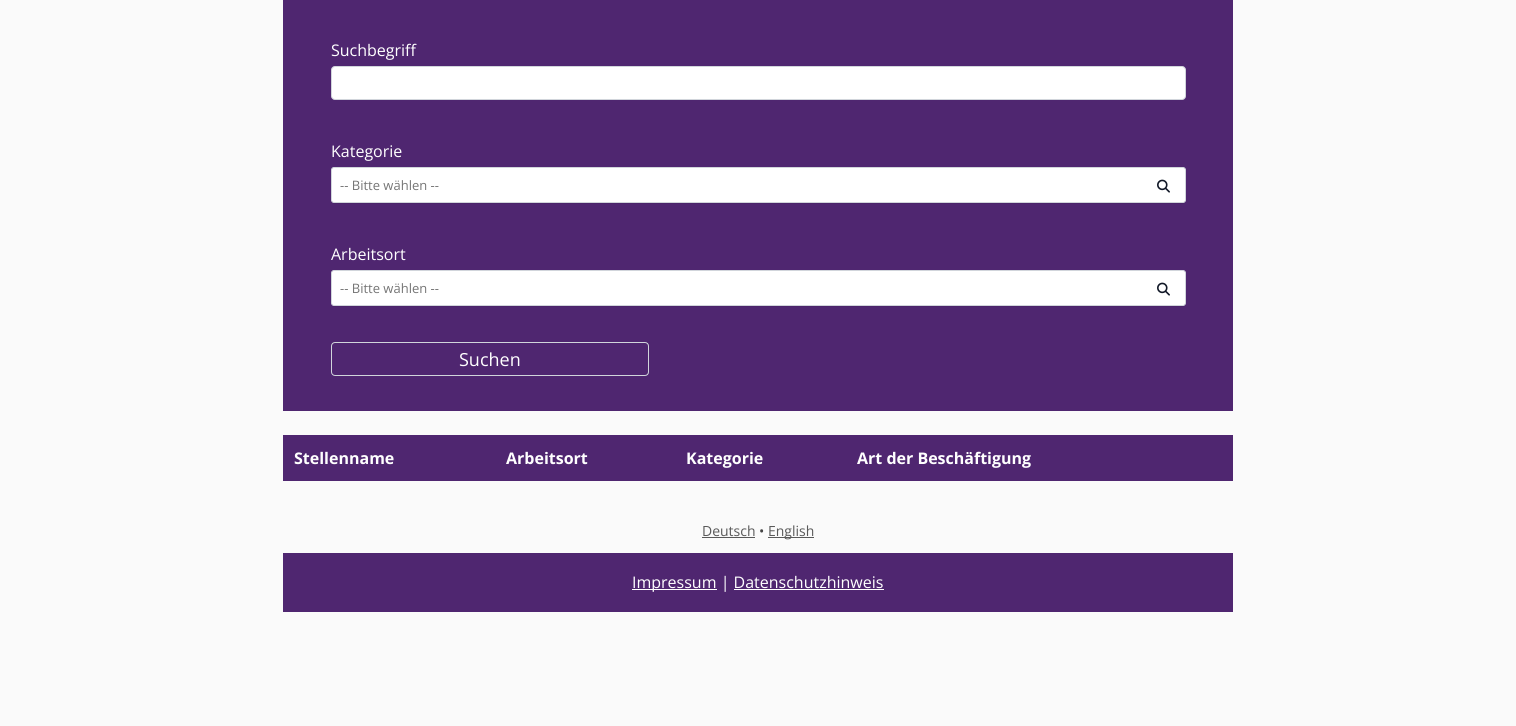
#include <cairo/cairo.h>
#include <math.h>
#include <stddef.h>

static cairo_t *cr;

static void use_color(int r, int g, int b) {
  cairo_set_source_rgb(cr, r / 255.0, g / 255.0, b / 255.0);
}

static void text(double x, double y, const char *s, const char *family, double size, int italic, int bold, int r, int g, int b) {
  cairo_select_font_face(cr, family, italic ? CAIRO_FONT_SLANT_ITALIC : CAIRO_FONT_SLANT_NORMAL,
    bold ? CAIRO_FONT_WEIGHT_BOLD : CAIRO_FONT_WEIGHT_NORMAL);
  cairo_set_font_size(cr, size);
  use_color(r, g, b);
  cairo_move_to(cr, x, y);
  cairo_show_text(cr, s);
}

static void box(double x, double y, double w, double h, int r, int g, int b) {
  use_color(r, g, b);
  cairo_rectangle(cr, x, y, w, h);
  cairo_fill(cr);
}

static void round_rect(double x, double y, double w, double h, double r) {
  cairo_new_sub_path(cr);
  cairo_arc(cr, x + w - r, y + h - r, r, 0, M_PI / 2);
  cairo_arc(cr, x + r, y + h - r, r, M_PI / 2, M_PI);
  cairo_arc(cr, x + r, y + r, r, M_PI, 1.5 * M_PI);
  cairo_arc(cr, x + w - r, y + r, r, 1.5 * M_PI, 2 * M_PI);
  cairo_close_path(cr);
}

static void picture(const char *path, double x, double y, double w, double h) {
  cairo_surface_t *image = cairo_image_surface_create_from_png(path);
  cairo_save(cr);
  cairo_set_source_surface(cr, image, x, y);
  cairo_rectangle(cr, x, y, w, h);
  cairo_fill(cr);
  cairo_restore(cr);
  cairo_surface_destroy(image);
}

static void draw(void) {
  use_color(250, 250, 250);
  cairo_paint(cr);
  box(283, 0, 950, 411, 79, 38, 112);
  use_color(255, 255, 255);
  round_rect(331.5, 66.5, 854, 33, 3.5);
  cairo_fill_preserve(cr);
  use_color(209, 213, 219);
  cairo_set_line_width(cr, 1);
  cairo_stroke(cr);
  use_color(75, 36, 106);
  cairo_new_path(cr);
  cairo_move_to(cr, 331, 200);
  cairo_curve_to(cr, 331, 202, 332, 204, 334, 204);
  cairo_line_to(cr, 1183, 204);
  cairo_curve_to(cr, 1185, 204, 1186, 202, 1186, 200);
  cairo_curve_to(cr, 1186, 202, 1185, 203, 1183, 203);
  cairo_line_to(cr, 334, 203);
  cairo_curve_to(cr, 332, 203, 331, 202, 331, 200);
  cairo_close_path(cr);
  cairo_fill(cr);
  use_color(255, 255, 255);
  round_rect(331.5, 167.5, 854, 35, 2.5);
  cairo_fill_preserve(cr);
  use_color(209, 213, 219);
  cairo_stroke(cr);
  picture("img_01.png", 1157, 179, 13, 14);
  use_color(75, 36, 106);
  cairo_new_path(cr);
  cairo_move_to(cr, 331, 303);
  cairo_curve_to(cr, 331, 305, 332, 307, 334, 307);
  cairo_line_to(cr, 1183, 307);
  cairo_curve_to(cr, 1185, 307, 1186, 305, 1186, 303);
  cairo_curve_to(cr, 1186, 305, 1185, 306, 1183, 306);
  cairo_line_to(cr, 334, 306);
  cairo_curve_to(cr, 332, 306, 331, 305, 331, 303);
  cairo_close_path(cr);
  cairo_fill(cr);
  use_color(255, 255, 255);
  round_rect(331.5, 270.5, 854, 35, 2.5);
  cairo_fill_preserve(cr);
  use_color(209, 213, 219);
  cairo_stroke(cr);
  picture("img_01.png", 1157, 282, 13, 14);
  round_rect(331.5, 342.5, 317, 33, 3.5);
  cairo_stroke(cr);
  box(283, 435, 950, 1, 79, 38, 112);
  box(283, 480, 950, 1, 79, 38, 112);
  box(283, 435, 1, 46, 79, 38, 112);
  box(284, 436, 949, 44, 79, 38, 112);
  box(702, 537, 53, 1, 89, 89, 89);
  box(768, 537, 46, 1, 89, 89, 89);
  box(283, 553, 950, 59, 79, 38, 112);
  box(632, 589, 85, 1, 255, 255, 255);
  box(734, 589, 150, 1, 255, 255, 255);
  text(331, 56, "Suchbegriff", "Open Sans", 16, 0, 0, 255, 255, 255);
  text(331, 157, "Kategorie", "Open Sans", 16, 0, 0, 255, 255, 255);
  text(340, 190, "-- Bitte wählen --", "Open Sans", 13, 0, 0, 117, 117, 117);
  text(331, 260, "Arbeitsort", "Open Sans", 16, 0, 0, 255, 255, 255);
  text(340, 293, "-- Bitte wählen --", "Open Sans", 13, 0, 0, 117, 117, 117);
  text(459, 366, "Suchen", "Open Sans", 18, 0, 0, 255, 255, 255);
  text(294, 464, "Stellenname", "Open Sans", 16, 0, 1, 255, 255, 255);
  text(506, 464, "Arbeitsort", "Open Sans", 16, 0, 1, 255, 255, 255);
  text(686, 464, "Kategorie", "Open Sans", 16, 0, 1, 255, 255, 255);
  text(857, 464, "Art der Beschäftigung", "Open Sans", 16, 0, 1, 255, 255, 255);
  text(702, 536, "Deutsch", "Open Sans", 14, 0, 0, 89, 89, 89);
  text(759, 536, "•", "Open Sans", 14, 0, 0, 68, 68, 68);
  text(768, 536, "English", "Open Sans", 14, 0, 0, 89, 89, 89);
  text(632, 588, "Impressum | Datenschutzhinweis", "Open Sans", 16, 0, 0, 255, 255, 255);
}

int main(void) {
  cairo_surface_t *surface = cairo_image_surface_create(CAIRO_FORMAT_RGB24, 1516, 726);
  cr = cairo_create(surface);
  cairo_font_options_t *options = cairo_font_options_create();
  cairo_font_options_set_hint_metrics(options, CAIRO_HINT_METRICS_OFF);
  cairo_font_options_set_hint_style(options, CAIRO_HINT_STYLE_NONE);
  cairo_set_font_options(cr, options);
  cairo_set_miter_limit(cr, 4);
  draw();
  cairo_surface_write_to_png(surface, "out.png");
  cairo_font_options_destroy(options);
  cairo_destroy(cr);
  cairo_surface_destroy(surface);
  return 0;
}
